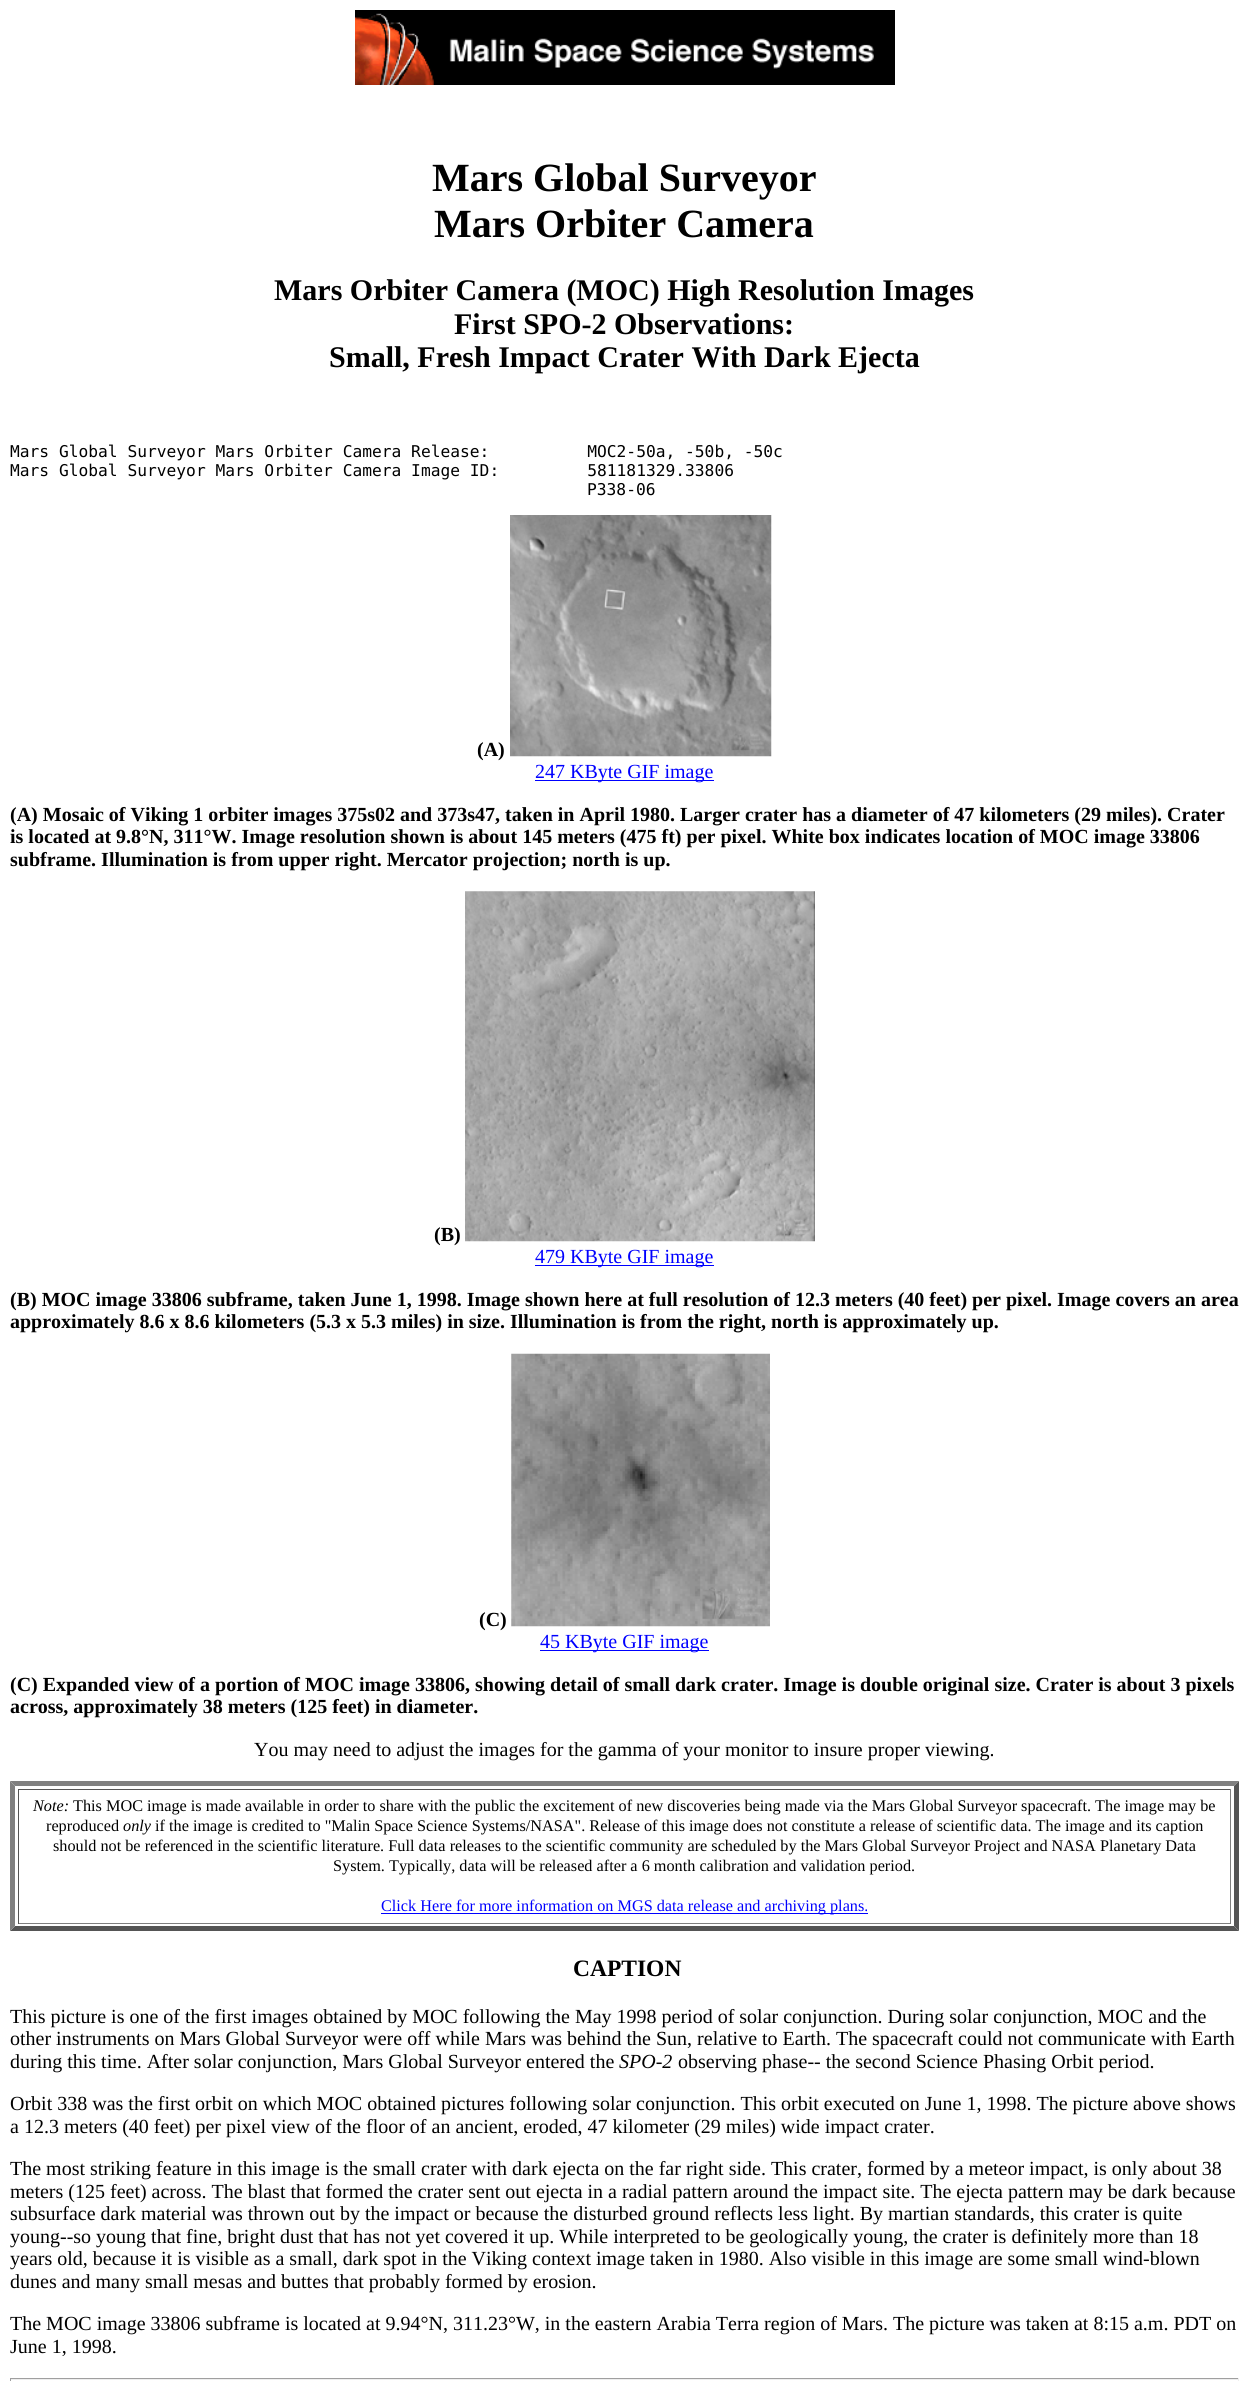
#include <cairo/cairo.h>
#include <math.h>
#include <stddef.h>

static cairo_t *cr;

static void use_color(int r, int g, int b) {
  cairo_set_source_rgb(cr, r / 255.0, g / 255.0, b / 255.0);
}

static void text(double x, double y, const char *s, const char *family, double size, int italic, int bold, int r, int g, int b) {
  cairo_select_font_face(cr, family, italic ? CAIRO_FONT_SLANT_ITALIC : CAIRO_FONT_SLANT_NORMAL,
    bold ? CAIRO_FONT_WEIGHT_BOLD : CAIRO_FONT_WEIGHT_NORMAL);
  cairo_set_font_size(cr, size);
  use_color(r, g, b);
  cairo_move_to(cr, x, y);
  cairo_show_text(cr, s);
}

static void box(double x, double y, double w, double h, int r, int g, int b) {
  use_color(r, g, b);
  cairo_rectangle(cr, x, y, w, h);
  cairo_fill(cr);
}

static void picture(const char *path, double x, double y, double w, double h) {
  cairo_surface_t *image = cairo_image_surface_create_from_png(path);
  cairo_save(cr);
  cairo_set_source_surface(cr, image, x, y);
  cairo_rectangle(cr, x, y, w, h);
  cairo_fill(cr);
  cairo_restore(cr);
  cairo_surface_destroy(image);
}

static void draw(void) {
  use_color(255, 255, 255);
  cairo_paint(cr);
  picture("img_01.png", 355, 10, 540, 75);
  picture("img_02.png", 510, 515, 262, 242);
  box(535, 780, 179, 1, 0, 0, 255);
  picture("img_03.png", 465, 891, 350, 351);
  box(535, 1265, 179, 1, 0, 0, 255);
  picture("img_04.png", 511, 1353, 259, 274);
  box(540, 1650, 169, 1, 0, 0, 255);
  use_color(128, 128, 128);
  cairo_new_path(cr);
  cairo_move_to(cr, 10, 1781);
  cairo_line_to(cr, 1239, 1781);
  cairo_line_to(cr, 1234, 1786);
  cairo_line_to(cr, 15, 1786);
  cairo_close_path(cr);
  cairo_fill(cr);
  use_color(85, 85, 85);
  cairo_new_path(cr);
  cairo_move_to(cr, 1239, 1781);
  cairo_line_to(cr, 1239, 1931);
  cairo_line_to(cr, 1234, 1926);
  cairo_line_to(cr, 1234, 1786);
  cairo_close_path(cr);
  cairo_fill(cr);
  cairo_new_path(cr);
  cairo_move_to(cr, 1239, 1931);
  cairo_line_to(cr, 10, 1931);
  cairo_line_to(cr, 15, 1926);
  cairo_line_to(cr, 1234, 1926);
  cairo_close_path(cr);
  cairo_fill(cr);
  use_color(128, 128, 128);
  cairo_new_path(cr);
  cairo_move_to(cr, 10, 1931);
  cairo_line_to(cr, 10, 1781);
  cairo_line_to(cr, 15, 1786);
  cairo_line_to(cr, 15, 1926);
  cairo_close_path(cr);
  cairo_fill(cr);
  box(18, 1789, 1213, 1, 85, 85, 85);
  box(1230, 1789, 1, 135, 128, 128, 128);
  box(18, 1923, 1213, 1, 128, 128, 128);
  box(18, 1789, 1, 135, 85, 85, 85);
  box(381, 1913, 487, 1, 0, 0, 255);
  box(10, 2378, 1229, 1, 159, 159, 159);
  box(1238, 2378, 1, 3, 238, 238, 238);
  box(10, 2379, 1229, 1, 238, 238, 238);
  box(10, 2378, 1, 3, 159, 159, 159);
  text(432, 191, "Mars Global Surveyor", "Liberation Serif", 40, 0, 1, 0, 0, 0);
  text(434, 237, "Mars Orbiter Camera", "Liberation Serif", 40, 0, 1, 0, 0, 0);
  text(274, 300, "Mars Orbiter Camera (MOC) High Resolution Images", "Liberation Serif", 30, 0, 1, 0, 0, 0);
  text(454, 334, "First SPO-2 Observations:", "Liberation Serif", 30, 0, 1, 0, 0, 0);
  text(329, 367, "Small, Fresh Impact Crater With Dark Ejecta", "Liberation Serif", 30, 0, 1, 0, 0, 0);
  text(10, 457, "Mars Global Surveyor Mars Orbiter Camera Release:          MOC2-50a, -50b, -50c", "DejaVu Sans Mono", 16.25, 0, 0, 0, 0, 0);
  text(10, 476, "Mars Global Surveyor Mars Orbiter Camera Image ID:         581181329.33806", "DejaVu Sans Mono", 16.25, 0, 0, 0, 0, 0);
  text(587, 495, "P338-06", "DejaVu Sans Mono", 16.25, 0, 0, 0, 0, 0);
  text(477, 756, "(A)", "Liberation Serif", 20, 0, 1, 0, 0, 0);
  text(535, 778, "247 KByte GIF image", "Liberation Serif", 20, 0, 0, 0, 0, 255);
  text(10, 821, "(A) Mosaic of Viking 1 orbiter images 375s02 and 373s47, taken in April 1980. Larger crater has a diameter of 47 kilometers (29 miles). Crater", "Liberation Serif", 20, 0, 1, 0, 0, 0);
  text(10, 843, "is located at 9.8°N, 311°W. Image resolution shown is about 145 meters (475 ft) per pixel. White box indicates location of MOC image 33806", "Liberation Serif", 20, 0, 1, 0, 0, 0);
  text(10, 866, "subframe. Illumination is from upper right. Mercator projection; north is up.", "Liberation Serif", 20, 0, 1, 0, 0, 0);
  text(434, 1241, "(B)", "Liberation Serif", 20, 0, 1, 0, 0, 0);
  text(535, 1263, "479 KByte GIF image", "Liberation Serif", 20, 0, 0, 0, 0, 255);
  text(10, 1306, "(B) MOC image 33806 subframe, taken June 1, 1998. Image shown here at full resolution of 12.3 meters (40 feet) per pixel. Image covers an area", "Liberation Serif", 20, 0, 1, 0, 0, 0);
  text(10, 1328, "approximately 8.6 x 8.6 kilometers (5.3 x 5.3 miles) in size. Illumination is from the right, north is approximately up.", "Liberation Serif", 20, 0, 1, 0, 0, 0);
  text(479, 1626, "(C)", "Liberation Serif", 20, 0, 1, 0, 0, 0);
  text(540, 1648, "45 KByte GIF image", "Liberation Serif", 20, 0, 0, 0, 0, 255);
  text(10, 1691, "(C) Expanded view of a portion of MOC image 33806, showing detail of small dark crater. Image is double original size. Crater is about 3 pixels", "Liberation Serif", 20, 0, 1, 0, 0, 0);
  text(10, 1713, "across, approximately 38 meters (125 feet) in diameter.", "Liberation Serif", 20, 0, 1, 0, 0, 0);
  text(254, 1756, "You may need to adjust the images for the gamma of your monitor to insure proper viewing.", "Liberation Serif", 20, 0, 0, 0, 0, 0);
  text(33, 1811, "Note:", "Liberation Serif", 16.25, 1, 0, 0, 0, 0);
  text(73, 1811, "This MOC image is made available in order to share with the public the excitement of new discoveries being made via the Mars Global Surveyor spacecraft. The image may be", "Liberation Serif", 16.25, 0, 0, 0, 0, 0);
  text(46, 1831, "reproduced", "Liberation Serif", 16.25, 0, 0, 0, 0, 0);
  text(123, 1831, "only", "Liberation Serif", 16.25, 1, 0, 0, 0, 0);
  text(155, 1831, "if the image is credited to \"Malin Space Science Systems/NASA\". Release of this image does not constitute a release of scientific data. The image and its caption", "Liberation Serif", 16.25, 0, 0, 0, 0, 0);
  text(53, 1851, "should not be referenced in the scientific literature. Full data releases to the scientific community are scheduled by the Mars Global Surveyor Project and NASA Planetary Data", "Liberation Serif", 16.25, 0, 0, 0, 0, 0);
  text(333, 1871, "System. Typically, data will be released after a 6 month calibration and validation period.", "Liberation Serif", 16.25, 0, 0, 0, 0, 0);
  text(381, 1911, "Click Here for more information on MGS data release and archiving plans.", "Liberation Serif", 16.25, 0, 0, 0, 0, 255);
  text(573, 1976, "CAPTION", "Liberation Serif", 23.5, 0, 1, 0, 0, 0);
  text(10, 2023, "This picture is one of the first images obtained by MOC following the May 1998 period of solar conjunction. During solar conjunction, MOC and the", "Liberation Serif", 20, 0, 0, 0, 0, 0);
  text(10, 2045, "other instruments on Mars Global Surveyor were off while Mars was behind the Sun, relative to Earth. The spacecraft could not communicate with Earth", "Liberation Serif", 20, 0, 0, 0, 0, 0);
  text(10, 2068, "during this time. After solar conjunction, Mars Global Surveyor entered the", "Liberation Serif", 20, 0, 0, 0, 0, 0);
  text(619, 2068, "SPO-2", "Liberation Serif", 20, 1, 0, 0, 0, 0);
  text(678, 2068, "observing phase-- the second Science Phasing Orbit period.", "Liberation Serif", 20, 0, 0, 0, 0, 0);
  text(10, 2110, "Orbit 338 was the first orbit on which MOC obtained pictures following solar conjunction. This orbit executed on June 1, 1998. The picture above shows", "Liberation Serif", 20, 0, 0, 0, 0, 0);
  text(10, 2133, "a 12.3 meters (40 feet) per pixel view of the floor of an ancient, eroded, 47 kilometer (29 miles) wide impact crater.", "Liberation Serif", 20, 0, 0, 0, 0, 0);
  text(10, 2175, "The most striking feature in this image is the small crater with dark ejecta on the far right side. This crater, formed by a meteor impact, is only about 38", "Liberation Serif", 20, 0, 0, 0, 0, 0);
  text(10, 2198, "meters (125 feet) across. The blast that formed the crater sent out ejecta in a radial pattern around the impact site. The ejecta pattern may be dark because", "Liberation Serif", 20, 0, 0, 0, 0, 0);
  text(10, 2220, "subsurface dark material was thrown out by the impact or because the disturbed ground reflects less light. By martian standards, this crater is quite", "Liberation Serif", 20, 0, 0, 0, 0, 0);
  text(10, 2243, "young--so young that fine, bright dust that has not yet covered it up. While interpreted to be geologically young, the crater is definitely more than 18", "Liberation Serif", 20, 0, 0, 0, 0, 0);
  text(10, 2265, "years old, because it is visible as a small, dark spot in the Viking context image taken in 1980. Also visible in this image are some small wind-blown", "Liberation Serif", 20, 0, 0, 0, 0, 0);
  text(10, 2288, "dunes and many small mesas and buttes that probably formed by erosion.", "Liberation Serif", 20, 0, 0, 0, 0, 0);
  text(10, 2330, "The MOC image 33806 subframe is located at 9.94°N, 311.23°W, in the eastern Arabia Terra region of Mars. The picture was taken at 8:15 a.m. PDT on", "Liberation Serif", 20, 0, 0, 0, 0, 0);
  text(10, 2353, "June 1, 1998.", "Liberation Serif", 20, 0, 0, 0, 0, 0);
}

int main(void) {
  cairo_surface_t *surface = cairo_image_surface_create(CAIRO_FORMAT_RGB24, 1248, 2388);
  cr = cairo_create(surface);
  cairo_font_options_t *options = cairo_font_options_create();
  cairo_font_options_set_hint_metrics(options, CAIRO_HINT_METRICS_OFF);
  cairo_font_options_set_hint_style(options, CAIRO_HINT_STYLE_NONE);
  cairo_set_font_options(cr, options);
  cairo_set_miter_limit(cr, 4);
  draw();
  cairo_surface_write_to_png(surface, "out.png");
  cairo_font_options_destroy(options);
  cairo_destroy(cr);
  cairo_surface_destroy(surface);
  return 0;
}
